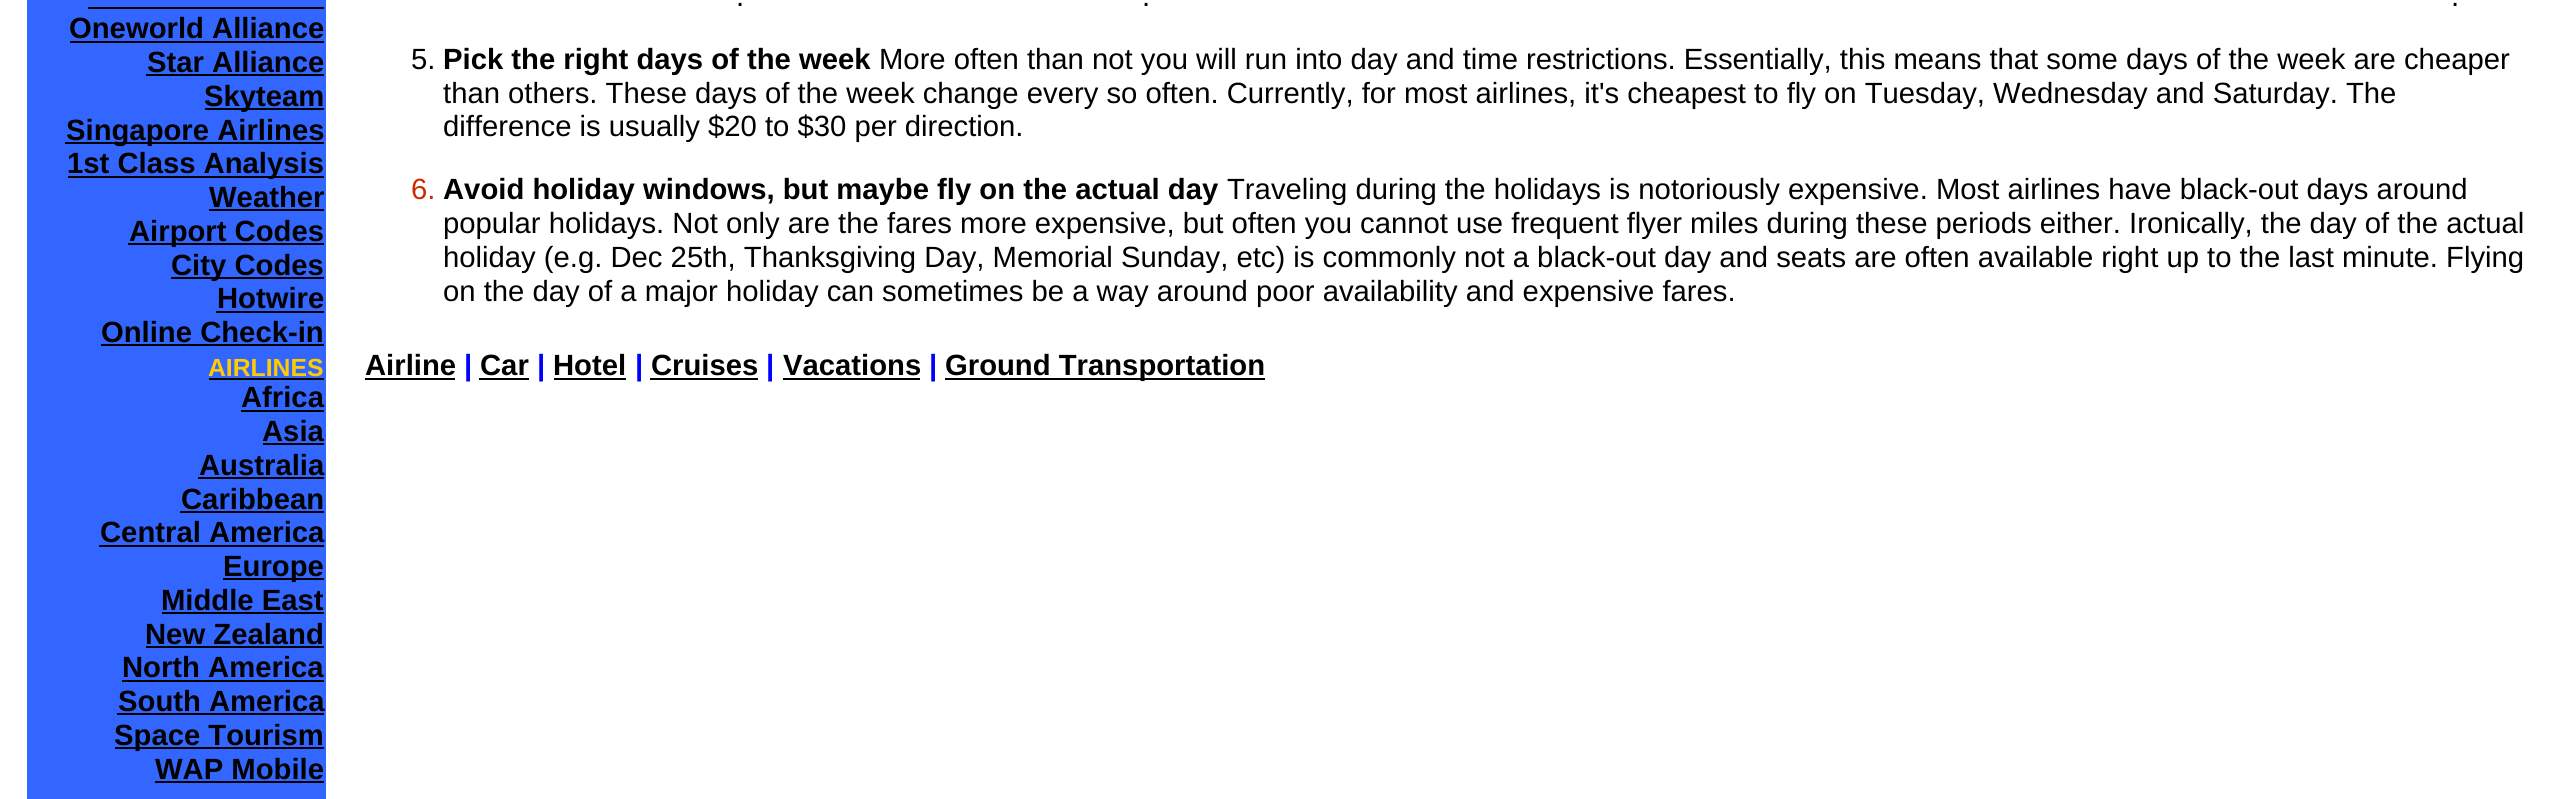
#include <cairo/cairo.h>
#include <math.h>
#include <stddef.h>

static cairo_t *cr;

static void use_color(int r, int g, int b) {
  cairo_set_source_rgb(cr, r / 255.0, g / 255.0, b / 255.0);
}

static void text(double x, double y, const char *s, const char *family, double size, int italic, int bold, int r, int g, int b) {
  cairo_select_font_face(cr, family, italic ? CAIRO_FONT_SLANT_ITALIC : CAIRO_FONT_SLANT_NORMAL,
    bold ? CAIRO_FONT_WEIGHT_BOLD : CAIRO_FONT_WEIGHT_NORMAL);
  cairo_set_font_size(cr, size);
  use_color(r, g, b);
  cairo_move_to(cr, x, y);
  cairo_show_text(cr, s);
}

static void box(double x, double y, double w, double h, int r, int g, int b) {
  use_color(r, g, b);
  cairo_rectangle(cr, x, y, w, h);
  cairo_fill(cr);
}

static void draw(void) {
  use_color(255, 255, 255);
  cairo_paint(cr);
  box(27, 0, 299, 799, 51, 102, 255);
  box(88, 7, 236, 2, 0, 0, 0);
  box(70, 41, 254, 2, 0, 0, 0);
  box(146, 74, 178, 2, 0, 0, 0);
  box(205, 108, 119, 2, 0, 0, 0);
  box(65, 142, 259, 2, 0, 0, 0);
  box(68, 176, 256, 2, 0, 0, 0);
  box(209, 209, 115, 2, 0, 0, 0);
  box(128, 243, 196, 2, 0, 0, 0);
  box(171, 277, 153, 2, 0, 0, 0);
  box(216, 311, 108, 2, 0, 0, 0);
  box(101, 344, 223, 2, 0, 0, 0);
  box(209, 378, 115, 2, 0, 0, 0);
  box(241, 410, 83, 2, 0, 0, 0);
  box(263, 443, 61, 2, 0, 0, 0);
  box(198, 477, 126, 2, 0, 0, 0);
  box(180, 511, 144, 2, 0, 0, 0);
  box(99, 545, 225, 2, 0, 0, 0);
  box(223, 578, 101, 2, 0, 0, 0);
  box(162, 612, 162, 2, 0, 0, 0);
  box(146, 646, 178, 2, 0, 0, 0);
  box(122, 680, 202, 2, 0, 0, 0);
  box(117, 713, 207, 2, 0, 0, 0);
  box(115, 747, 209, 2, 0, 0, 0);
  box(155, 781, 169, 2, 0, 0, 0);
  box(365, 378, 90, 2, 0, 0, 0);
  box(479, 378, 50, 2, 0, 0, 0);
  box(554, 378, 72, 2, 0, 0, 0);
  box(650, 378, 108, 2, 0, 0, 0);
  box(783, 378, 137, 2, 0, 0, 0);
  box(945, 378, 320, 2, 0, 0, 0);
  text(69, 38, "Oneworld Alliance", "Liberation Sans", 29.25, 0, 1, 0, 0, 0);
  text(147, 72, "Star Alliance", "Liberation Sans", 29.25, 0, 1, 0, 0, 0);
  text(204, 106, "Skyteam", "Liberation Sans", 29.25, 0, 1, 0, 0, 0);
  text(66, 140, "Singapore Airlines", "Liberation Sans", 29.25, 0, 1, 0, 0, 0);
  text(67, 173, "1st Class Analysis", "Liberation Sans", 29.25, 0, 1, 0, 0, 0);
  text(209, 207, "Weather", "Liberation Sans", 29.25, 0, 1, 0, 0, 0);
  text(129, 241, "Airport Codes", "Liberation Sans", 29.25, 0, 1, 0, 0, 0);
  text(171, 275, "City Codes", "Liberation Sans", 29.25, 0, 1, 0, 0, 0);
  text(217, 308, "Hotwire", "Liberation Sans", 29.25, 0, 1, 0, 0, 0);
  text(101, 342, "Online Check-in", "Liberation Sans", 29.25, 0, 1, 0, 0, 0);
  text(208, 376, "AIRLINES", "Liberation Sans", 24.75, 0, 1, 255, 204, 0);
  text(241, 407, "Africa", "Liberation Sans", 29.25, 0, 1, 0, 0, 0);
  text(262, 441, "Asia", "Liberation Sans", 29.25, 0, 1, 0, 0, 0);
  text(199, 475, "Australia", "Liberation Sans", 29.25, 0, 1, 0, 0, 0);
  text(181, 509, "Caribbean", "Liberation Sans", 29.25, 0, 1, 0, 0, 0);
  text(100, 542, "Central America", "Liberation Sans", 29.25, 0, 1, 0, 0, 0);
  text(223, 576, "Europe", "Liberation Sans", 29.25, 0, 1, 0, 0, 0);
  text(161, 610, "Middle East", "Liberation Sans", 29.25, 0, 1, 0, 0, 0);
  text(145, 644, "New Zealand", "Liberation Sans", 29.25, 0, 1, 0, 0, 0);
  text(122, 677, "North America", "Liberation Sans", 29.25, 0, 1, 0, 0, 0);
  text(118, 711, "South America", "Liberation Sans", 29.25, 0, 1, 0, 0, 0);
  text(114, 745, "Space Tourism", "Liberation Sans", 29.25, 0, 1, 0, 0, 0);
  text(155, 779, "WAP Mobile", "Liberation Sans", 29.25, 0, 1, 0, 0, 0);
  text(736, 6, ".", "Liberation Sans", 29.25, 0, 0, 0, 0, 0);
  text(1142, 6, ".", "Liberation Sans", 29.25, 0, 0, 0, 0, 0);
  text(2451, 6, ".", "Liberation Sans", 29.25, 0, 0, 0, 0, 0);
  text(411, 69, "5.", "Liberation Sans", 29.25, 0, 0, 0, 0, 0);
  text(443, 69, "Pick the right days of the week", "Liberation Sans", 29.25, 0, 1, 0, 0, 0);
  text(879, 69, "More often than not you will run into day and time restrictions. Essentially, this means that some days of the week are cheaper", "Liberation Sans", 29.25, 0, 0, 0, 0, 0);
  text(443, 103, "than others. These days of the week change every so often. Currently, for most airlines, it's cheapest to fly on Tuesday, Wednesday and Saturday. The", "Liberation Sans", 29.25, 0, 0, 0, 0, 0);
  text(443, 136, "difference is usually $20 to $30 per direction.", "Liberation Sans", 29.25, 0, 0, 0, 0, 0);
  text(411, 199, "6.", "Liberation Sans", 29.25, 0, 0, 206, 41, 0);
  text(443, 199, "Avoid holiday windows, but maybe fly on the actual day", "Liberation Sans", 29.25, 0, 1, 0, 0, 0);
  text(1227, 199, "Traveling during the holidays is notoriously expensive. Most airlines have black-out days around", "Liberation Sans", 29.25, 0, 0, 0, 0, 0);
  text(443, 233, "popular holidays. Not only are the fares more expensive, but often you cannot use frequent flyer miles during these periods either. Ironically, the day of the actual", "Liberation Sans", 29.25, 0, 0, 0, 0, 0);
  text(443, 267, "holiday (e.g. Dec 25th, Thanksgiving Day, Memorial Sunday, etc) is commonly not a black-out day and seats are often available right up to the last minute. Flying", "Liberation Sans", 29.25, 0, 0, 0, 0, 0);
  text(443, 301, "on the day of a major holiday can sometimes be a way around poor availability and expensive fares.", "Liberation Sans", 29.25, 0, 0, 0, 0, 0);
  text(365, 375, "Airline", "Liberation Sans", 29.25, 0, 1, 0, 0, 0);
  text(464, 375, "|", "Liberation Sans", 29.25, 0, 1, 0, 0, 255);
  text(480, 375, "Car", "Liberation Sans", 29.25, 0, 1, 0, 0, 0);
  text(537, 375, "|", "Liberation Sans", 29.25, 0, 1, 0, 0, 255);
  text(553, 375, "Hotel", "Liberation Sans", 29.25, 0, 1, 0, 0, 0);
  text(635, 375, "|", "Liberation Sans", 29.25, 0, 1, 0, 0, 255);
  text(651, 375, "Cruises", "Liberation Sans", 29.25, 0, 1, 0, 0, 0);
  text(766, 375, "|", "Liberation Sans", 29.25, 0, 1, 0, 0, 255);
  text(783, 375, "Vacations", "Liberation Sans", 29.25, 0, 1, 0, 0, 0);
  text(929, 375, "|", "Liberation Sans", 29.25, 0, 1, 0, 0, 255);
  text(945, 375, "Ground Transportation", "Liberation Sans", 29.25, 0, 1, 0, 0, 0);
}

int main(void) {
  cairo_surface_t *surface = cairo_image_surface_create(CAIRO_FORMAT_RGB24, 2553, 799);
  cr = cairo_create(surface);
  cairo_font_options_t *options = cairo_font_options_create();
  cairo_font_options_set_hint_metrics(options, CAIRO_HINT_METRICS_OFF);
  cairo_font_options_set_hint_style(options, CAIRO_HINT_STYLE_NONE);
  cairo_set_font_options(cr, options);
  cairo_set_miter_limit(cr, 4);
  draw();
  cairo_surface_write_to_png(surface, "out.png");
  cairo_font_options_destroy(options);
  cairo_destroy(cr);
  cairo_surface_destroy(surface);
  return 0;
}
